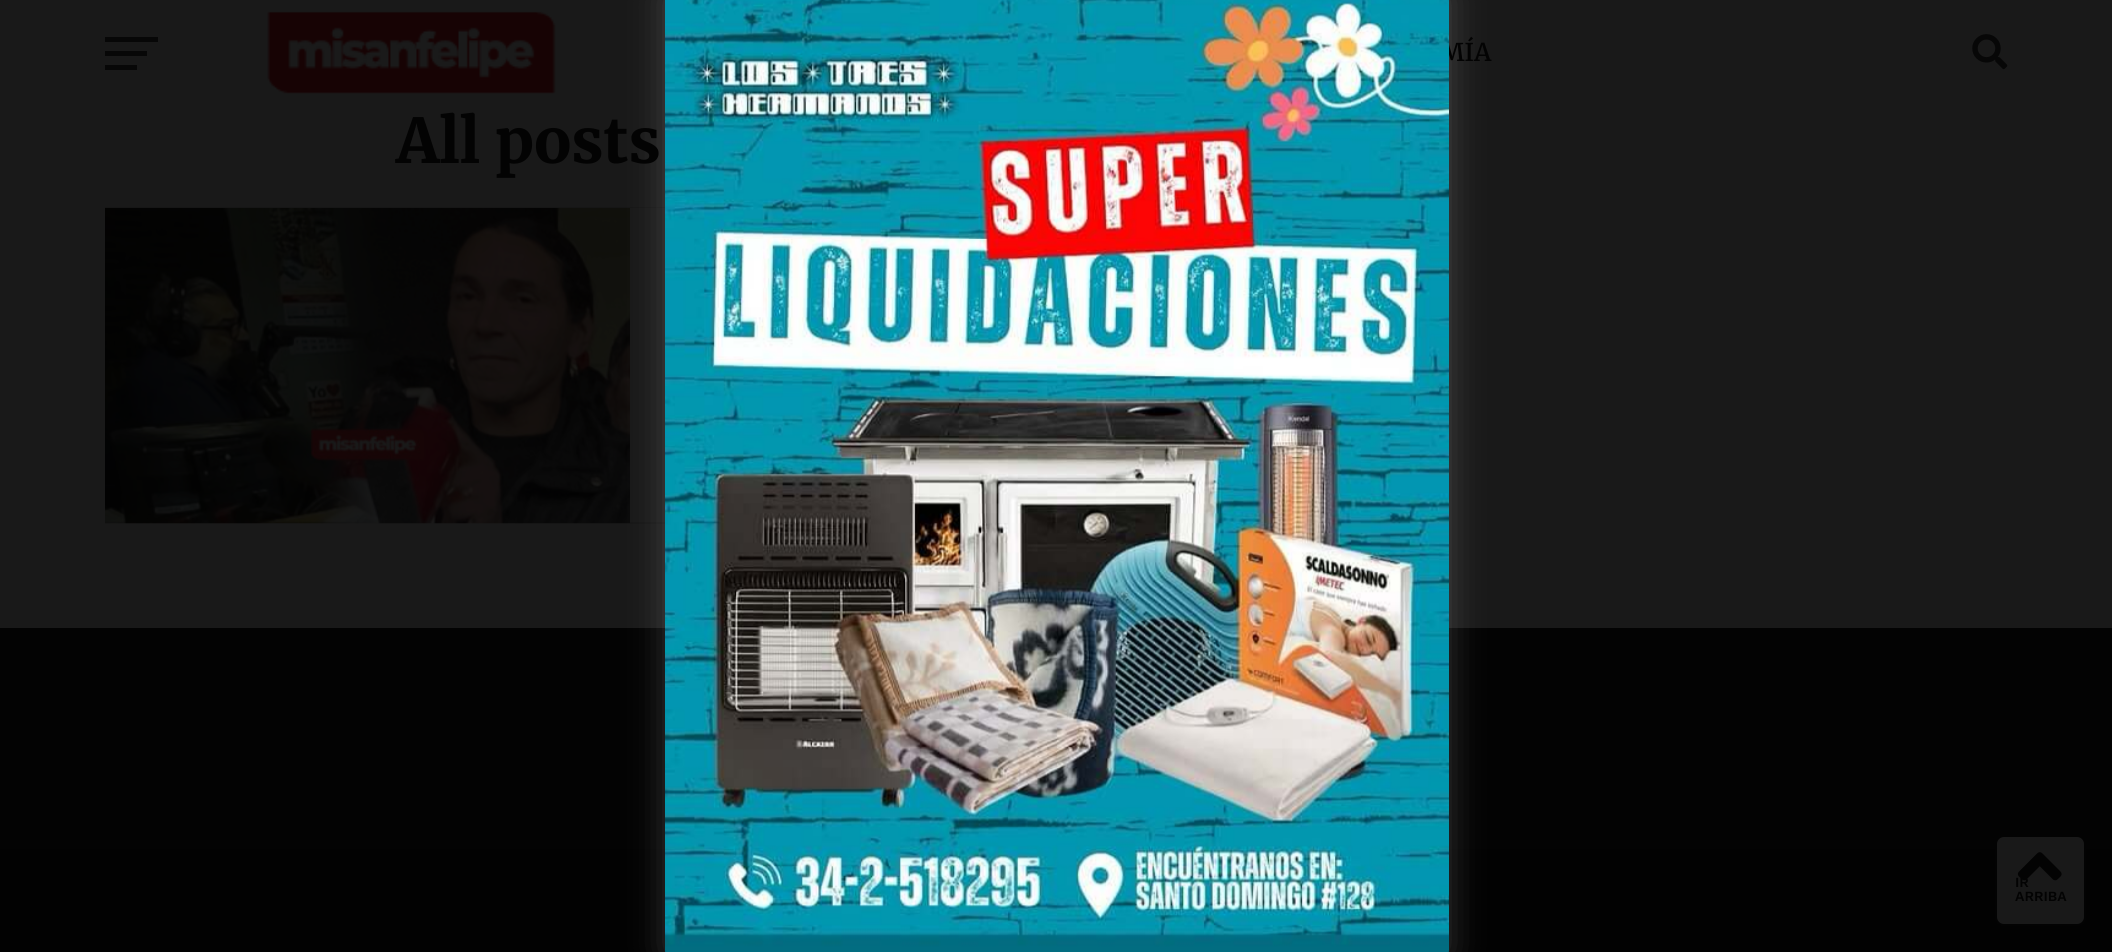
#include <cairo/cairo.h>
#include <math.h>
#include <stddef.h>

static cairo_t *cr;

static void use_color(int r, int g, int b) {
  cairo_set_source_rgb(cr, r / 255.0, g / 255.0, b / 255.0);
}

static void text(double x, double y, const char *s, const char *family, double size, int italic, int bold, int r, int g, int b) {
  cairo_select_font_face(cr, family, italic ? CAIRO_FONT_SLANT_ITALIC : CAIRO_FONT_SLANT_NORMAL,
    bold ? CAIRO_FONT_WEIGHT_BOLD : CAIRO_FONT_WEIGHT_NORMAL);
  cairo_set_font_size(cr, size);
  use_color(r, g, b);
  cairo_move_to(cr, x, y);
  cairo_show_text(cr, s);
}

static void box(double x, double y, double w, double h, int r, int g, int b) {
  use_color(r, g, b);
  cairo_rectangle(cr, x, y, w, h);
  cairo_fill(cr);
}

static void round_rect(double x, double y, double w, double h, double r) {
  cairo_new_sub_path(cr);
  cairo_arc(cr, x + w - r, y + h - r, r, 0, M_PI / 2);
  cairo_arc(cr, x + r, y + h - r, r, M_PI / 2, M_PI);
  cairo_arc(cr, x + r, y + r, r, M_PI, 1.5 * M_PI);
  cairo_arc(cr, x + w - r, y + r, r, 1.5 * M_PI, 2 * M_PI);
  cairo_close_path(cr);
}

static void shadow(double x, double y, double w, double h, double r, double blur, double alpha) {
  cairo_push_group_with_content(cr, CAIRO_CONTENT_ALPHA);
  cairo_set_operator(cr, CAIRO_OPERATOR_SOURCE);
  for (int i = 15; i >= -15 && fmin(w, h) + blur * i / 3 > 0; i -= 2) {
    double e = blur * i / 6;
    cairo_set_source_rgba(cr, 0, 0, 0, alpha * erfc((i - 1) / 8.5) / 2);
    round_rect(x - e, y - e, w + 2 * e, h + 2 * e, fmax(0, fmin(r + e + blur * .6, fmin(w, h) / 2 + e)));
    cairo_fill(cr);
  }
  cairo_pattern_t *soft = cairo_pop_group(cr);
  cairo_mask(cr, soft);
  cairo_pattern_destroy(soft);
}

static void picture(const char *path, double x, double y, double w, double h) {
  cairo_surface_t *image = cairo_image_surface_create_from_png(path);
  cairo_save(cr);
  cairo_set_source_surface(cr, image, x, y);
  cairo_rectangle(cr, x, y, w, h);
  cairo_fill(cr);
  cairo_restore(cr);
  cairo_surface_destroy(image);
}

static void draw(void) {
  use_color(25, 25, 25);
  cairo_paint(cr);
  box(105, 37, 53, 5, 7, 7, 7);
  box(105, 51, 42, 5, 7, 7, 7);
  box(105, 65, 32, 5, 7, 7, 7);
  picture("img_01.png", 267, 11, 289, 83);
  picture("img_02.png", 1972, 34, 36, 36);
  box(105, 207, 560, 2, 22, 22, 22);
  picture("img_03.png", 105, 208, 525, 316);
  box(630, 208, 35, 1, 25, 25, 25);
  box(630, 522, 35, 2, 22, 22, 22);
  box(0, 628, 2112, 221, 3, 3, 3);
  box(0, 849, 2112, 103, 2, 2, 2);
  use_color(255, 255, 255);
  shadow(665, -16, 784, 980, 14, 17.5, 0.2);
  use_color(25, 25, 25);
  round_rect(1996, 836, 89, 89, 8);
  cairo_fill_preserve(cr);
  use_color(3, 3, 3);
  cairo_stroke(cr);
  picture("img_05.png", 2017, 852, 45, 29);
  text(1440, 61, "MÍA", "Merriweather SemiBold", 24.5, 0, 0, 3, 3, 3);
  text(396, 163, "All posts", "Merriweather ExtraBold", 61.5, 0, 0, 3, 3, 3);
  picture("img_04.png", 665, 0, 784, 952);
  text(2015, 887, "IR", "Work Sans SemiBold", 14, 0, 0, 3, 3, 3);
  text(2015, 901, "ARRIBA", "Work Sans SemiBold", 14, 0, 0, 3, 3, 3);
}

int main(void) {
  cairo_surface_t *surface = cairo_image_surface_create(CAIRO_FORMAT_RGB24, 2112, 952);
  cr = cairo_create(surface);
  cairo_font_options_t *options = cairo_font_options_create();
  cairo_font_options_set_hint_metrics(options, CAIRO_HINT_METRICS_OFF);
  cairo_font_options_set_hint_style(options, CAIRO_HINT_STYLE_NONE);
  cairo_set_font_options(cr, options);
  cairo_set_miter_limit(cr, 4);
  draw();
  cairo_surface_write_to_png(surface, "out.png");
  cairo_font_options_destroy(options);
  cairo_destroy(cr);
  cairo_surface_destroy(surface);
  return 0;
}
